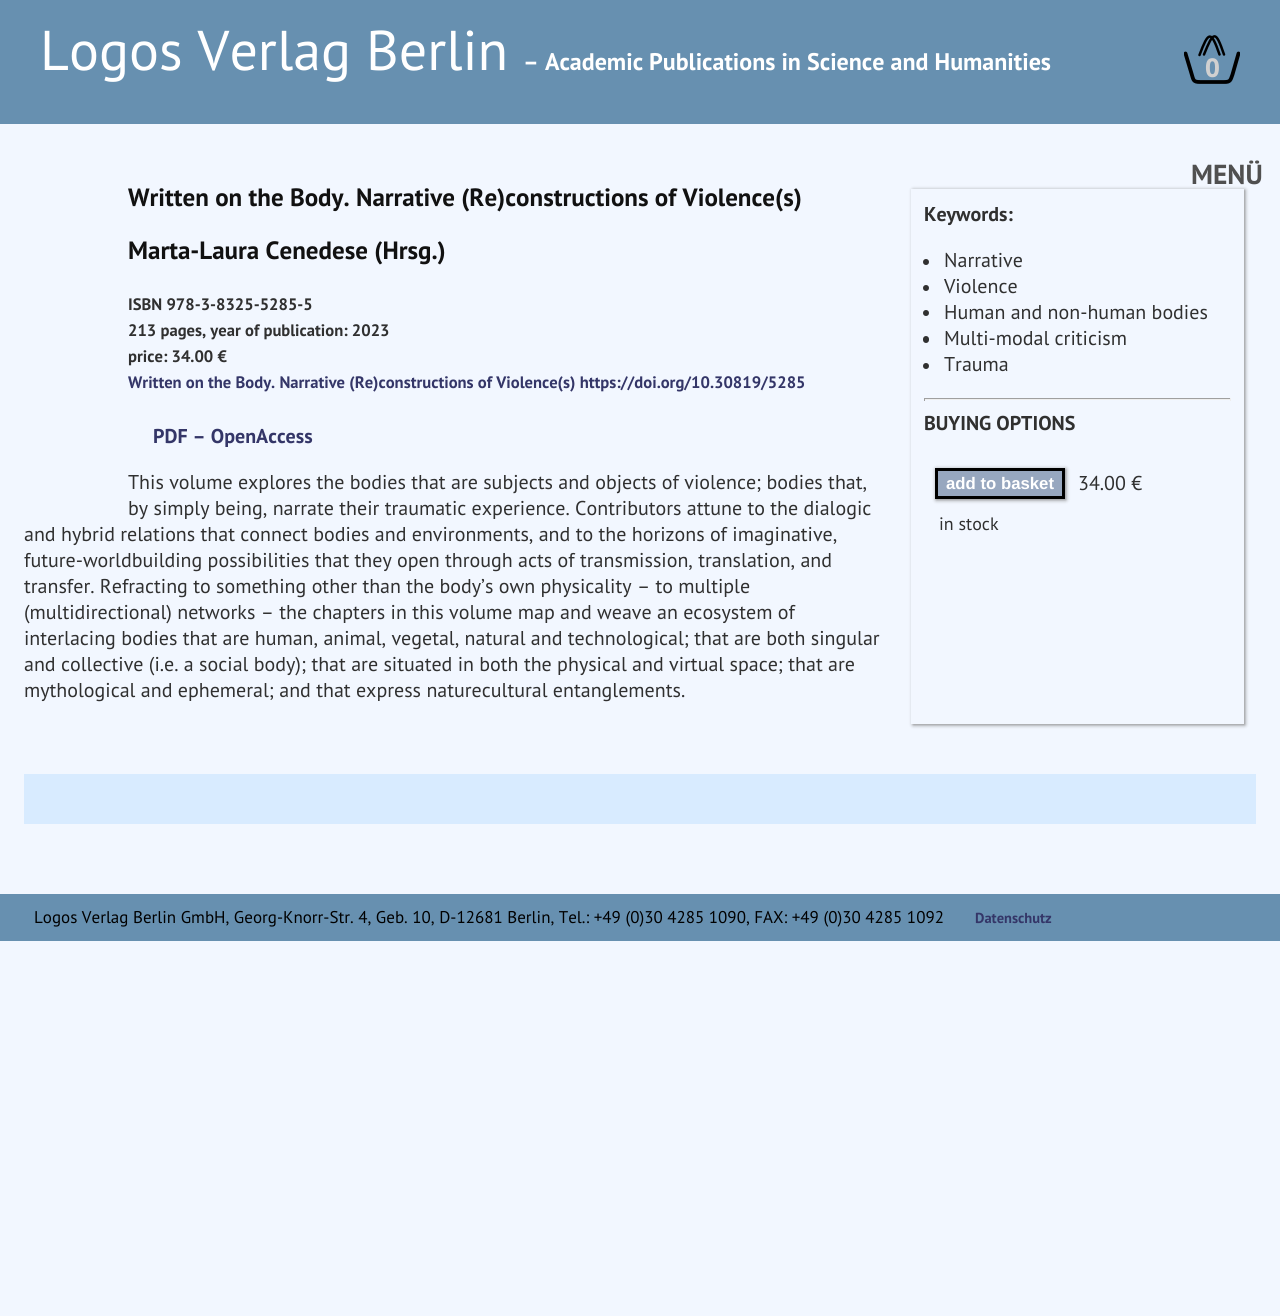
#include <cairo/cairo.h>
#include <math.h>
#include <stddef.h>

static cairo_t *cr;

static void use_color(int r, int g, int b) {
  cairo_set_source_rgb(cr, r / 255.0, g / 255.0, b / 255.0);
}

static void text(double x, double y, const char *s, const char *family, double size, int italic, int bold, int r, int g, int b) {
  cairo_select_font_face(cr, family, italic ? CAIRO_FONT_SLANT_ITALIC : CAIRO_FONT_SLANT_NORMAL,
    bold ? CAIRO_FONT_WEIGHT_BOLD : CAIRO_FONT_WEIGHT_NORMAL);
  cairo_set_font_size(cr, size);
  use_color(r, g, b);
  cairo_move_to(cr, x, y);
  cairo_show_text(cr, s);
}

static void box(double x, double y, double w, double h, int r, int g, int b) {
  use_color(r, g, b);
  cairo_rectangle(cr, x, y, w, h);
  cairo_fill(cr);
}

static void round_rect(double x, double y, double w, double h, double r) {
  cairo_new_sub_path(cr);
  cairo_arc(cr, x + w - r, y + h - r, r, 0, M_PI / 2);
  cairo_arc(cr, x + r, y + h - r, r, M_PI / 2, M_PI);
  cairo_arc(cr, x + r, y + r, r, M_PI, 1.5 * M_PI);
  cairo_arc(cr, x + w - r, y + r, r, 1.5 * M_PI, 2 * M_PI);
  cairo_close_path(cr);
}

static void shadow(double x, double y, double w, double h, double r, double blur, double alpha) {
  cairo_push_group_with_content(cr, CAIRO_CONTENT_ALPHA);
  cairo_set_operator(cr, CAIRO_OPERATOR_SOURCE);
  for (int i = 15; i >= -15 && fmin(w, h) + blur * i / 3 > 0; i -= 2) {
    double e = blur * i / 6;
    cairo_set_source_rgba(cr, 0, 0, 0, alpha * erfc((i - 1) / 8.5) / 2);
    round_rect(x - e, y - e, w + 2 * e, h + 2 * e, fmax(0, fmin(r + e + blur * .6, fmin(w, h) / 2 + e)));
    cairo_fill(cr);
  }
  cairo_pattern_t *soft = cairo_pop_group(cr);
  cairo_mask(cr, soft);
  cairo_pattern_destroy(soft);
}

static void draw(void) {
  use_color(242, 247, 255);
  cairo_paint(cr);
  box(0, 0, 1280, 124, 103, 144, 176);
  cairo_save(cr);
  cairo_rectangle(cr, 1184, 35, 56, 49);
  cairo_clip(cr);
  cairo_new_path(cr);
  cairo_move_to(cr, 1185.5, 53.5);
  cairo_line_to(cr, 1191.5, 73.5);
  cairo_curve_to(cr, 1193.5, 80, 1193, 82, 1200, 82);
  cairo_line_to(cr, 1224.5, 82);
  cairo_curve_to(cr, 1230.5, 82, 1230.5, 80, 1232.5, 74.5);
  cairo_line_to(cr, 1238.5, 53.5);
  use_color(0, 0, 0);
  cairo_set_line_width(cr, 3.8);
  cairo_set_line_cap(cr, CAIRO_LINE_CAP_ROUND);
  cairo_stroke(cr);
  cairo_restore(cr);
  cairo_new_path(cr);
  cairo_move_to(cr, 1199.5, 55);
  cairo_curve_to(cr, 1208.5, 31, 1211, 30, 1219.5, 54.5);
  cairo_move_to(cr, 1204, 54.5);
  cairo_curve_to(cr, 1213.5, 31, 1215.5, 29.5, 1224, 54.5);
  use_color(0, 0, 0);
  cairo_set_line_width(cr, 2.5);
  cairo_set_line_cap(cr, CAIRO_LINE_CAP_ROUND);
  cairo_stroke(cr);
  cairo_save(cr);
  cairo_set_fill_rule(cr, CAIRO_FILL_RULE_EVEN_ODD);
  cairo_new_path(cr);
  cairo_move_to(cr, 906, 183);
  cairo_line_to(cr, 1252, 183);
  cairo_line_to(cr, 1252, 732);
  cairo_line_to(cr, 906, 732);
  cairo_close_path(cr);
  cairo_move_to(cr, 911, 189);
  cairo_line_to(cr, 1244, 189);
  cairo_line_to(cr, 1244, 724);
  cairo_line_to(cr, 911, 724);
  cairo_close_path(cr);
  cairo_clip(cr);
  use_color(128, 128, 128);
  shadow(913, 190, 332, 535, 0, 2, 1);
  cairo_restore(cr);
  use_color(48, 48, 48);
  cairo_arc(cr, 926, 262, 3, 0, 2 * M_PI);
  cairo_fill(cr);
  cairo_arc(cr, 926, 288, 3, 0, 2 * M_PI);
  cairo_fill(cr);
  cairo_arc(cr, 926, 313, 3, 0, 2 * M_PI);
  cairo_fill(cr);
  round_rect(923, 336, 6, 7, 3);
  cairo_fill(cr);
  cairo_arc(cr, 926, 366, 3, 0, 2 * M_PI);
  cairo_fill(cr);
  box(924, 398, 307, 1, 159, 159, 159);
  box(1230, 398, 1, 3, 238, 238, 238);
  box(924, 399, 307, 1, 238, 238, 238);
  box(924, 398, 1, 3, 159, 159, 159);
  use_color(128, 128, 128);
  shadow(936, 469, 130, 31, 0, 2, 1);
  use_color(151, 167, 191);
  cairo_rectangle(cr, 936.5, 469.5, 127, 28);
  cairo_fill_preserve(cr);
  use_color(0, 0, 0);
  cairo_set_line_width(cr, 3);
  cairo_set_line_cap(cr, CAIRO_LINE_CAP_BUTT);
  cairo_stroke(cr);
  box(24, 774, 1232, 50, 216, 235, 255);
  box(0, 894, 1280, 47, 103, 144, 176);
  text(40, 70, "Logos Verlag Berlin", "PT Sans", 56, 0, 0, 255, 255, 255);
  text(523, 70, "– Academic Publications in Science and Humanities", "PT Sans", 24, 0, 1, 255, 255, 255);
  text(1205, 77, "0", "Noto Sans", 26, 0, 1, 208, 208, 208);
  text(1191, 184, "MENÜ", "PT Sans", 27.5, 0, 1, 80, 80, 80);
  text(128, 206, "Written on the Body. Narrative (Re)constructions of Violence(s)", "PT Sans", 25, 0, 1, 17, 17, 17);
  text(128, 259, "Marta-Laura Cenedese (Hrsg.)", "PT Sans", 25, 0, 1, 17, 17, 17);
  text(128, 310, "ISBN 978-3-8325-5285-5", "PT Sans", 16.6, 0, 1, 48, 48, 48);
  text(128, 336, "213 pages, year of publication: 2023", "PT Sans", 16.6, 0, 1, 48, 48, 48);
  text(128, 362, "price: 34.00 €", "PT Sans", 16.6, 0, 1, 48, 48, 48);
  text(128, 388, "Written on the Body. Narrative (Re)constructions of Violence(s) https://doi.org/10.30819/5285", "PT Sans", 16.6, 0, 1, 52, 54, 104);
  text(153, 443, "PDF – OpenAccess", "PT Sans", 20, 0, 1, 52, 54, 104);
  text(128, 489, "This volume explores the bodies that are subjects and objects of violence; bodies that,", "PT Sans", 20, 0, 0, 48, 48, 48);
  text(128, 515, "by simply being, narrate their traumatic experience. Contributors attune to the dialogic", "PT Sans", 20, 0, 0, 48, 48, 48);
  text(24, 541, "and hybrid relations that connect bodies and environments, and to the horizons of imaginative,", "PT Sans", 20, 0, 0, 48, 48, 48);
  text(24, 567, "future-worldbuilding possibilities that they open through acts of transmission, translation, and", "PT Sans", 20, 0, 0, 48, 48, 48);
  text(24, 593, "transfer. Refracting to something other than the body’s own physicality – to multiple", "PT Sans", 20, 0, 0, 48, 48, 48);
  text(24, 619, "(multidirectional) networks – the chapters in this volume map and weave an ecosystem of", "PT Sans", 20, 0, 0, 48, 48, 48);
  text(24, 645, "interlacing bodies that are human, animal, vegetal, natural and technological; that are both singular", "PT Sans", 20, 0, 0, 48, 48, 48);
  text(24, 671, "and collective (i.e. a social body); that are situated in both the physical and virtual space; that are", "PT Sans", 20, 0, 0, 48, 48, 48);
  text(24, 697, "mythological and ephemeral; and that express naturecultural entanglements.", "PT Sans", 20, 0, 0, 48, 48, 48);
  text(924, 221, "Keywords:", "PT Sans", 20, 0, 1, 48, 48, 48);
  text(944, 267, "Narrative", "PT Sans", 20, 0, 0, 48, 48, 48);
  text(944, 293, "Violence", "PT Sans", 20, 0, 0, 48, 48, 48);
  text(944, 319, "Human and non-human bodies", "PT Sans", 20, 0, 0, 48, 48, 48);
  text(944, 345, "Multi-modal criticism", "PT Sans", 20, 0, 0, 48, 48, 48);
  text(944, 371, "Trauma", "PT Sans", 20, 0, 0, 48, 48, 48);
  text(924, 430, "BUYING OPTIONS", "PT Sans", 20, 0, 1, 48, 48, 48);
  text(946, 489, "add to basket", "Liberation Sans", 16.75, 0, 1, 255, 255, 255);
  text(1078, 490, "34.00 €", "PT Sans", 20, 0, 0, 48, 48, 48);
  text(939, 530, "in stock", "PT Sans", 18, 0, 0, 48, 48, 48);
  text(34, 923, "Logos Verlag Berlin GmbH, Georg-Knorr-Str. 4, Geb. 10, D-12681 Berlin, Tel.: +49 (0)30 4285 1090, FAX: +49 (0)30 4285 1092", "PT Sans", 17, 0, 0, 0, 0, 0);
  text(975, 923, "Datenschutz", "PT Sans", 14.5, 0, 1, 52, 54, 104);
}

int main(void) {
  cairo_surface_t *surface = cairo_image_surface_create(CAIRO_FORMAT_RGB24, 1280, 1316);
  cr = cairo_create(surface);
  cairo_font_options_t *options = cairo_font_options_create();
  cairo_font_options_set_hint_metrics(options, CAIRO_HINT_METRICS_OFF);
  cairo_font_options_set_hint_style(options, CAIRO_HINT_STYLE_NONE);
  cairo_set_font_options(cr, options);
  cairo_set_miter_limit(cr, 4);
  draw();
  cairo_surface_write_to_png(surface, "out.png");
  cairo_font_options_destroy(options);
  cairo_destroy(cr);
  cairo_surface_destroy(surface);
  return 0;
}
